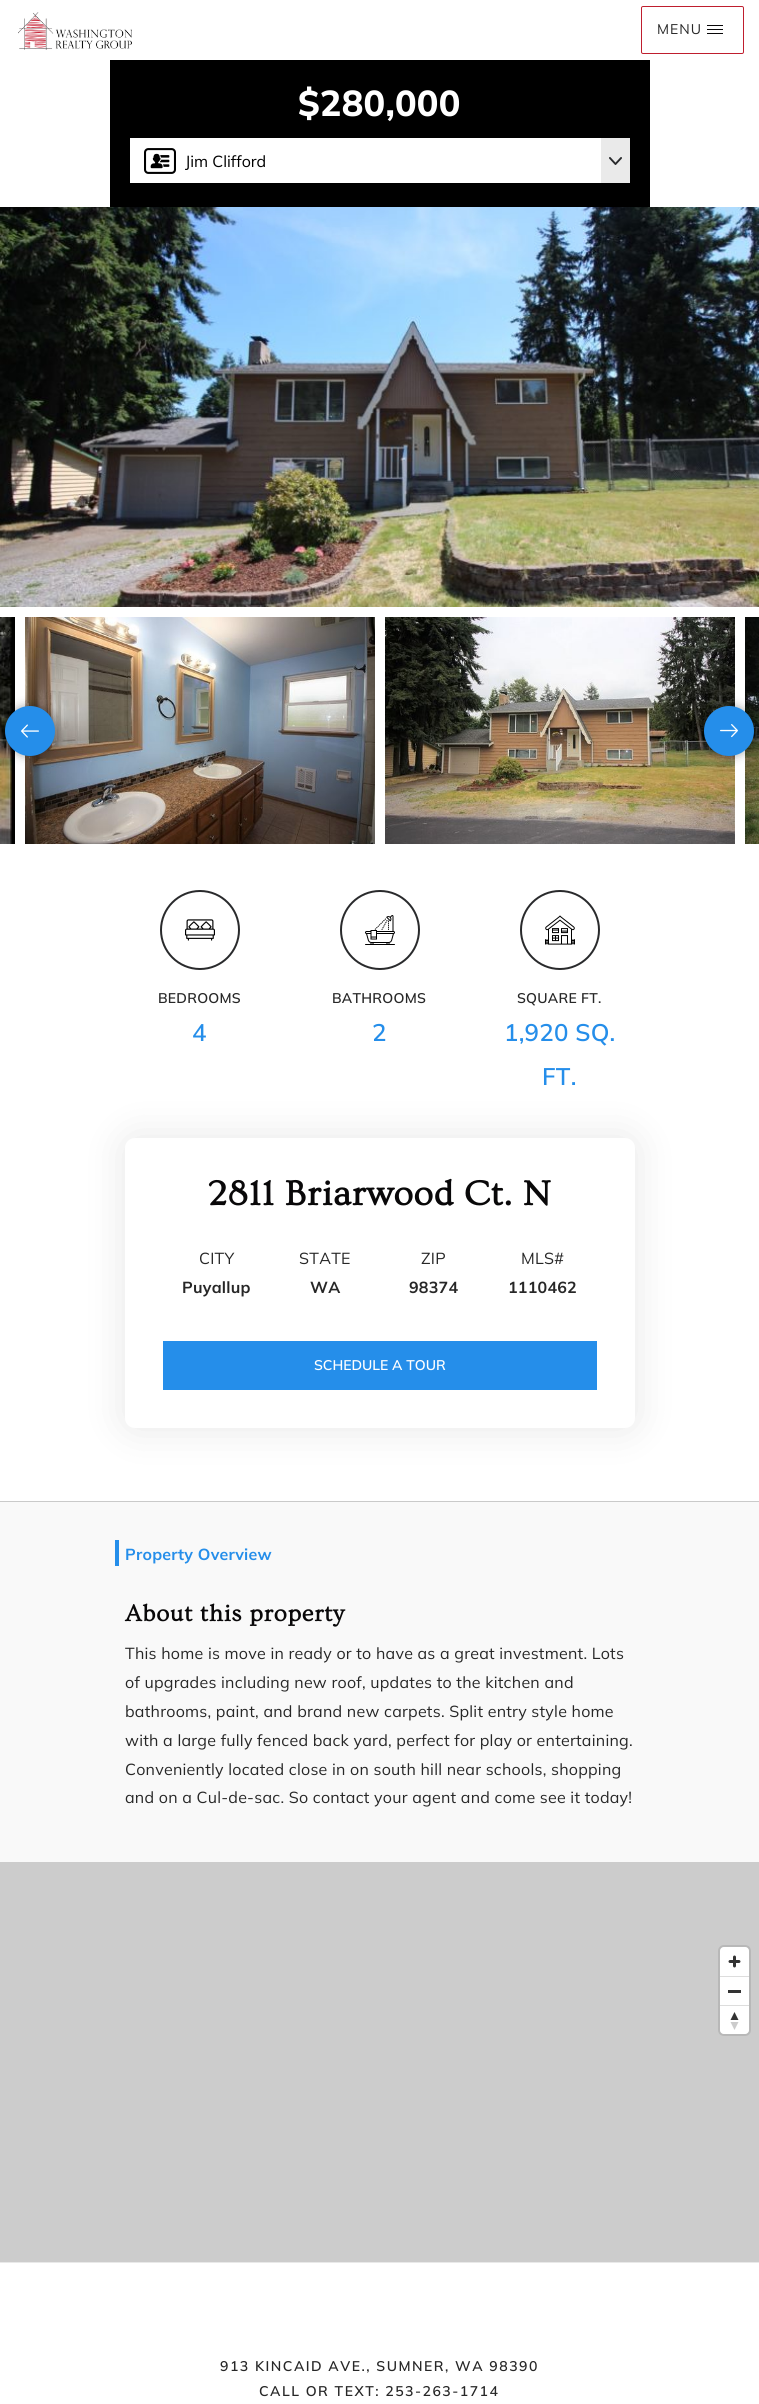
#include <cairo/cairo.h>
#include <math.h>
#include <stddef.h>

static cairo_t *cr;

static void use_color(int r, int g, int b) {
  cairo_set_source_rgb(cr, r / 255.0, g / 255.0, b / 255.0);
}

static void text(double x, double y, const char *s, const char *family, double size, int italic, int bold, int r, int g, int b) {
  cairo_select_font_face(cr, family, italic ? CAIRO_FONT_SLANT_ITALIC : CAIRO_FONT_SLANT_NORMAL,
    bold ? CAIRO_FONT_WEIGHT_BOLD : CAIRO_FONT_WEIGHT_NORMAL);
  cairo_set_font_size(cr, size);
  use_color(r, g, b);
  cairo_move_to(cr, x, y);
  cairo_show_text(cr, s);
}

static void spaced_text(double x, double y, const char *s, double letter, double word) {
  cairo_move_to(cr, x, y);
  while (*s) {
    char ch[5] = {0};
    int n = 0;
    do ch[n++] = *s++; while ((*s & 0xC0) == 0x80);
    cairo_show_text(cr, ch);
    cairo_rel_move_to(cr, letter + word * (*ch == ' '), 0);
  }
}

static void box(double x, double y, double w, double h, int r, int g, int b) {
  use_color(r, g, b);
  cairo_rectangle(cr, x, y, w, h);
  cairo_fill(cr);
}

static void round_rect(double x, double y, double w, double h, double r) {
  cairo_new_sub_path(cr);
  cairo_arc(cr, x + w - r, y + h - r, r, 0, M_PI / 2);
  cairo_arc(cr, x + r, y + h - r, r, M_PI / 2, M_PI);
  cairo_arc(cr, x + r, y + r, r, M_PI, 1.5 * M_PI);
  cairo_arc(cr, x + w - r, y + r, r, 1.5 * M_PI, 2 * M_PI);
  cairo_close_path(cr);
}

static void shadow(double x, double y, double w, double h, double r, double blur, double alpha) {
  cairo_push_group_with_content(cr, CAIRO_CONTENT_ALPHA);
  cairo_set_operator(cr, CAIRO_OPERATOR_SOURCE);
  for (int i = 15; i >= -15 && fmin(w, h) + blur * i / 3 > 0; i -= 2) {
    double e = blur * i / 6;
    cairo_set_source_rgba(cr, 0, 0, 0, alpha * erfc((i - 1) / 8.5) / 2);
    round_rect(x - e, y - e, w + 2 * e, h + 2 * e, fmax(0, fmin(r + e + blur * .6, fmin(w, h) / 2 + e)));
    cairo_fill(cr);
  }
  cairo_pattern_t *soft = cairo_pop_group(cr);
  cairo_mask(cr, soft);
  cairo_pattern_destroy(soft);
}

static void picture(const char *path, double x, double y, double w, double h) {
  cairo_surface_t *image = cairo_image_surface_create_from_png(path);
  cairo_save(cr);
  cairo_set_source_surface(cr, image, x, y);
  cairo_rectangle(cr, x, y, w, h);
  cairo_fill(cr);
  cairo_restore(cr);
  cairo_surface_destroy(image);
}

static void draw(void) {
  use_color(255, 255, 255);
  cairo_paint(cr);
  picture("img_01.png", 18, 12, 114, 38);
  round_rect(641.5, 6.5, 102, 47, 1.5);
  use_color(191, 30, 46);
  cairo_set_line_width(cr, 1);
  cairo_stroke(cr);
  box(707, 25, 16, 1, 9, 8, 9);
  box(707, 29, 16, 1, 9, 8, 9);
  box(707, 33, 16, 1, 9, 8, 9);
  box(110, 60, 540, 147, 0, 0, 0);
  box(130, 138, 471, 45, 255, 255, 255);
  picture("img_02.png", 144, 148, 32, 26);
  box(601, 138, 29, 45, 234, 234, 234);
  picture("img_03.png", 609, 157, 13, 8);
  picture("img_04.png", 0, 207, 759, 400);
  picture("img_05.png", 0, 617, 15, 227);
  picture("img_06.png", 25, 617, 350, 227);
  picture("img_07.png", 385, 617, 350, 227);
  picture("img_08.png", 745, 617, 14, 227);
  use_color(0, 0, 0);
  shadow(5, 706, 50, 50, 25, 5, 0.35);
  use_color(37, 142, 234);
  cairo_arc(cr, 30, 731, 25, 0, 2 * M_PI);
  cairo_fill(cr);
  picture("img_09.png", 21, 724, 18, 14);
  use_color(0, 0, 0);
  shadow(704, 706, 50, 50, 25, 5, 0.35);
  use_color(37, 142, 234);
  cairo_arc(cr, 729, 731, 25, 0, 2 * M_PI);
  cairo_fill(cr);
  picture("img_10.png", 720, 724, 18, 14);
  box(0, 1501, 759, 1, 202, 202, 202);
  cairo_arc(cr, 200, 930, 39, 0, 2 * M_PI);
  use_color(41, 42, 44);
  cairo_set_line_width(cr, 2);
  cairo_stroke(cr);
  picture("img_11.png", 185, 919, 30, 22);
  cairo_arc(cr, 380, 930, 39, 0, 2 * M_PI);
  cairo_stroke(cr);
  picture("img_12.png", 365, 915, 30, 30);
  cairo_arc(cr, 560, 930, 39, 0, 2 * M_PI);
  cairo_stroke(cr);
  picture("img_13.png", 545, 915, 30, 30);
  use_color(0, 0, 0);
  shadow(125, 1138, 510, 290, 10, 20, 0.1);
  use_color(255, 255, 255);
  round_rect(125, 1138, 510, 290, 10);
  cairo_fill(cr);
  box(163, 1341, 434, 49, 37, 142, 234);
  box(0, 1502, 759, 360, 249, 249, 249);
  box(115, 1540, 4, 26, 37, 142, 234);
  box(0, 1862, 759, 400, 204, 204, 204);
  round_rect(719, 1946, 31, 89, 5);
  use_color(184, 184, 184);
  cairo_stroke(cr);
  use_color(255, 255, 255);
  round_rect(720, 1947, 29, 87, 4);
  cairo_fill(cr);
  picture("img_14.png", 728, 1955, 13, 13);
  box(720, 1976, 29, 1, 221, 221, 221);
  box(728, 1990, 13, 3, 51, 51, 51);
  box(720, 2005, 29, 1, 221, 221, 221);
  picture("img_15.png", 730, 2012, 9, 18);
  box(0, 2262, 759, 1, 233, 233, 233);
  cairo_select_font_face(cr, "Mulish", CAIRO_FONT_SLANT_NORMAL, CAIRO_FONT_WEIGHT_NORMAL);
  cairo_set_font_size(cr, 14);
  use_color(39, 39, 39);
  spaced_text(657, 34, "MENU", 1, 0);
  cairo_select_font_face(cr, "Mulish ExtraBold", CAIRO_FONT_SLANT_NORMAL, CAIRO_FONT_WEIGHT_NORMAL);
  cairo_set_font_size(cr, 36);
  use_color(255, 255, 255);
  spaced_text(298, 116, "$280,000", 0.25, 0);
  text(185, 167, "Jim Clifford", "Mulish", 16, 0, 0, 0, 0, 0);
  cairo_select_font_face(cr, "Mulish SemiBold", CAIRO_FONT_SLANT_NORMAL, CAIRO_FONT_WEIGHT_NORMAL);
  cairo_set_font_size(cr, 14);
  use_color(39, 39, 39);
  spaced_text(158, 1003, "BEDROOMS", 0.25, 0);
  cairo_set_font_size(cr, 24);
  use_color(37, 142, 234);
  spaced_text(192, 1041, "4", 0.25, 0);
  cairo_set_font_size(cr, 14);
  use_color(39, 39, 39);
  spaced_text(332, 1003, "BATHROOMS", 0.25, 0);
  cairo_set_font_size(cr, 24);
  use_color(37, 142, 234);
  spaced_text(372, 1041, "2", 0.25, 0);
  cairo_set_font_size(cr, 14);
  use_color(39, 39, 39);
  spaced_text(517, 1003, "SQUARE FT.", 0.25, 0);
  cairo_set_font_size(cr, 24);
  use_color(37, 142, 234);
  spaced_text(504, 1041, "1,920 SQ.", 0.25, 0);
  spaced_text(542, 1085, "FT.", 0.25, 0);
  cairo_select_font_face(cr, "Ovo", CAIRO_FONT_SLANT_NORMAL, CAIRO_FONT_WEIGHT_BOLD);
  cairo_set_font_size(cr, 36);
  use_color(9, 8, 9);
  spaced_text(208, 1205, "2811 Briarwood Ct. N", 0.75, 0);
  cairo_select_font_face(cr, "Mulish", CAIRO_FONT_SLANT_NORMAL, CAIRO_FONT_WEIGHT_NORMAL);
  cairo_set_font_size(cr, 16);
  use_color(39, 39, 39);
  spaced_text(199, 1264, "CITY", 0.25, 0);
  cairo_select_font_face(cr, "Mulish", CAIRO_FONT_SLANT_NORMAL, CAIRO_FONT_WEIGHT_BOLD);
  spaced_text(182, 1293, "Puyallup", 0.25, 0);
  cairo_select_font_face(cr, "Mulish", CAIRO_FONT_SLANT_NORMAL, CAIRO_FONT_WEIGHT_NORMAL);
  spaced_text(299, 1264, "STATE", 0.25, 0);
  cairo_select_font_face(cr, "Mulish", CAIRO_FONT_SLANT_NORMAL, CAIRO_FONT_WEIGHT_BOLD);
  spaced_text(310, 1293, "WA", 0.25, 0);
  cairo_select_font_face(cr, "Mulish", CAIRO_FONT_SLANT_NORMAL, CAIRO_FONT_WEIGHT_NORMAL);
  spaced_text(421, 1264, "ZIP", 0.25, 0);
  cairo_select_font_face(cr, "Mulish", CAIRO_FONT_SLANT_NORMAL, CAIRO_FONT_WEIGHT_BOLD);
  spaced_text(409, 1293, "98374", 0.25, 0);
  cairo_select_font_face(cr, "Mulish", CAIRO_FONT_SLANT_NORMAL, CAIRO_FONT_WEIGHT_NORMAL);
  spaced_text(521, 1264, "MLS#", 0.25, 0);
  cairo_select_font_face(cr, "Mulish", CAIRO_FONT_SLANT_NORMAL, CAIRO_FONT_WEIGHT_BOLD);
  spaced_text(508, 1293, "1110462", 0.25, 0);
  text(314, 1370, "SCHEDULE A TOUR", "Mulish SemiBold", 14, 0, 0, 255, 255, 255);
  cairo_select_font_face(cr, "Mulish", CAIRO_FONT_SLANT_NORMAL, CAIRO_FONT_WEIGHT_BOLD);
  cairo_set_font_size(cr, 16);
  use_color(37, 142, 234);
  spaced_text(125, 1560, "Property Overview", 0.25, 0);
  cairo_select_font_face(cr, "Ovo", CAIRO_FONT_SLANT_NORMAL, CAIRO_FONT_WEIGHT_BOLD);
  cairo_set_font_size(cr, 24);
  use_color(9, 8, 9);
  spaced_text(125, 1621, "About this property", 0.75, 0);
  cairo_select_font_face(cr, "Mulish", CAIRO_FONT_SLANT_NORMAL, CAIRO_FONT_WEIGHT_NORMAL);
  cairo_set_font_size(cr, 16);
  use_color(39, 39, 39);
  spaced_text(125, 1659, "This home is move in ready or to have as a great investment. Lots", 0.25, 0);
  spaced_text(125, 1688, "of upgrades including new roof, updates to the kitchen and", 0.25, 0);
  spaced_text(125, 1717, "bathrooms, paint, and brand new carpets. Split entry style home", 0.25, 0);
  spaced_text(125, 1746, "with a large fully fenced back yard, perfect for play or entertaining.", 0.25, 0);
  spaced_text(125, 1775, "Conveniently located close in on south hill near schools, shopping", 0.25, 0);
  spaced_text(125, 1803, "and on a Cul-de-sac. So contact your agent and come see it today!", 0.25, 0);
  cairo_select_font_face(cr, "Mulish SemiBold", CAIRO_FONT_SLANT_NORMAL, CAIRO_FONT_WEIGHT_NORMAL);
  cairo_set_font_size(cr, 14);
  spaced_text(220, 2371, "913 KINCAID AVE., SUMNER, WA 98390", 1.5, 0);
  spaced_text(259, 2396, "CALL OR TEXT: 253-263-1714", 1.5, 0);
}

int main(void) {
  cairo_surface_t *surface = cairo_image_surface_create(CAIRO_FORMAT_RGB24, 759, 2404);
  cr = cairo_create(surface);
  cairo_font_options_t *options = cairo_font_options_create();
  cairo_font_options_set_hint_metrics(options, CAIRO_HINT_METRICS_OFF);
  cairo_font_options_set_hint_style(options, CAIRO_HINT_STYLE_NONE);
  cairo_set_font_options(cr, options);
  cairo_set_miter_limit(cr, 4);
  draw();
  cairo_surface_write_to_png(surface, "out.png");
  cairo_font_options_destroy(options);
  cairo_destroy(cr);
  cairo_surface_destroy(surface);
  return 0;
}
